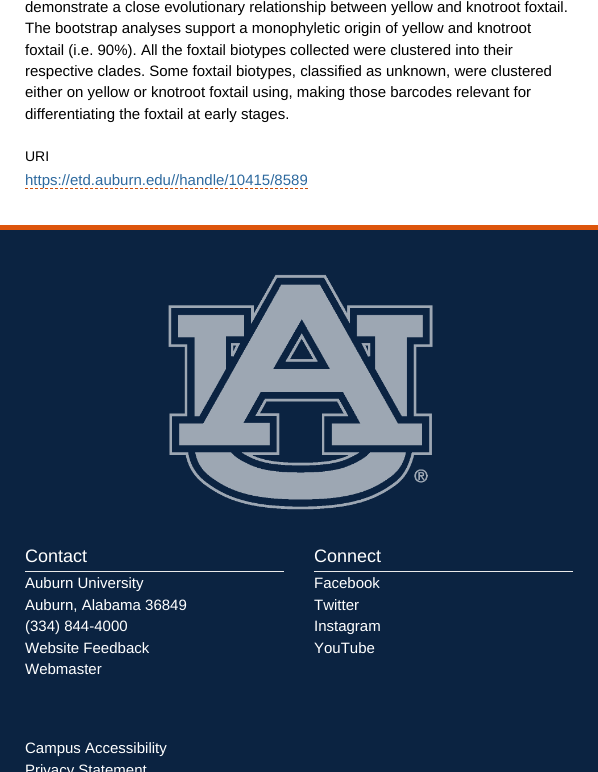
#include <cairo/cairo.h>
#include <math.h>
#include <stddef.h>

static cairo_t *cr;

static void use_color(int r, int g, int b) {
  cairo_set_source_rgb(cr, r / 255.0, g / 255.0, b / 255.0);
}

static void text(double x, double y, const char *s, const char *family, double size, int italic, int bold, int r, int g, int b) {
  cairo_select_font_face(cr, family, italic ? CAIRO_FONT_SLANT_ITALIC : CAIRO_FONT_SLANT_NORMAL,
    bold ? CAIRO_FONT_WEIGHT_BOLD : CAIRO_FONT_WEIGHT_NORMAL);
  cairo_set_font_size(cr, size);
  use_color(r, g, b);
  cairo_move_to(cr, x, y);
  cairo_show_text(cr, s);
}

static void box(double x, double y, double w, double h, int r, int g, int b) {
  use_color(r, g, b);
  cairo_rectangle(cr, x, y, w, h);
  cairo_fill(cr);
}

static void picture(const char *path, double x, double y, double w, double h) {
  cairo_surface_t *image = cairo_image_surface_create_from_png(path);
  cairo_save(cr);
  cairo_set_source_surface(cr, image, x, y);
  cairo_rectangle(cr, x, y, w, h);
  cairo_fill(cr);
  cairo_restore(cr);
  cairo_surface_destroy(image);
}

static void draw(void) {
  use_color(255, 255, 255);
  cairo_paint(cr);
  cairo_new_path(cr);
  cairo_move_to(cr, 25, 188.5);
  cairo_line_to(cr, 308, 188.5);
  use_color(204, 78, 11);
  cairo_set_line_width(cr, 1);
  cairo_set_dash(cr, (double[]){3, 2}, 2, 0);
  cairo_stroke(cr);
  box(0, 230, 598, 542, 11, 35, 65);
  box(0, 225, 598, 5, 221, 85, 12);
  picture("img_01.png", 168, 274, 265, 236);
  box(25, 571, 259, 1, 234, 234, 234);
  box(314, 571, 259, 1, 234, 234, 234);
  text(25, 12, "demonstrate a close evolutionary relationship between yellow and knotroot foxtail.", "Liberation Sans", 15, 0, 0, 0, 0, 0);
  text(25, 33, "The bootstrap analyses support a monophyletic origin of yellow and knotroot", "Liberation Sans", 15, 0, 0, 0, 0, 0);
  text(25, 55, "foxtail (i.e. 90%). All the foxtail biotypes collected were clustered into their", "Liberation Sans", 15, 0, 0, 0, 0, 0);
  text(25, 76, "respective clades. Some foxtail biotypes, classified as unknown, were clustered", "Liberation Sans", 15, 0, 0, 0, 0, 0);
  text(25, 97, "either on yellow or knotroot foxtail using, making those barcodes relevant for", "Liberation Sans", 15, 0, 0, 0, 0, 0);
  text(25, 119, "differentiating the foxtail at early stages.", "Liberation Sans", 15, 0, 0, 0, 0, 0);
  text(25, 161, "URI", "Liberation Sans", 14, 0, 0, 0, 0, 0);
  text(25, 185, "https://etd.auburn.edu//handle/10415/8589", "Liberation Sans", 15, 0, 0, 45, 105, 158);
  text(25, 562, "Contact", "Liberation Sans", 18, 0, 0, 255, 255, 255);
  text(25, 588, "Auburn University", "Liberation Sans", 15, 0, 0, 255, 255, 255);
  text(25, 610, "Auburn, Alabama 36849", "Liberation Sans", 15, 0, 0, 255, 255, 255);
  text(25, 631, "(334) 844-4000", "Liberation Sans", 15, 0, 0, 255, 255, 255);
  text(25, 653, "Website Feedback", "Liberation Sans", 15, 0, 0, 255, 255, 255);
  text(25, 674, "Webmaster", "Liberation Sans", 15, 0, 0, 255, 255, 255);
  text(314, 562, "Connect", "Liberation Sans", 18, 0, 0, 255, 255, 255);
  text(314, 588, "Facebook", "Liberation Sans", 15, 0, 0, 255, 255, 255);
  text(314, 610, "Twitter", "Liberation Sans", 15, 0, 0, 255, 255, 255);
  text(314, 631, "Instagram", "Liberation Sans", 15, 0, 0, 255, 255, 255);
  text(314, 653, "YouTube", "Liberation Sans", 15, 0, 0, 255, 255, 255);
  text(25, 753, "Campus Accessibility", "Liberation Sans", 15, 0, 0, 255, 255, 255);
  text(25, 775, "Privacy Statement", "Liberation Sans", 15, 0, 0, 255, 255, 255);
}

int main(void) {
  cairo_surface_t *surface = cairo_image_surface_create(CAIRO_FORMAT_RGB24, 598, 772);
  cr = cairo_create(surface);
  cairo_font_options_t *options = cairo_font_options_create();
  cairo_font_options_set_hint_metrics(options, CAIRO_HINT_METRICS_OFF);
  cairo_font_options_set_hint_style(options, CAIRO_HINT_STYLE_NONE);
  cairo_set_font_options(cr, options);
  cairo_set_miter_limit(cr, 4);
  draw();
  cairo_surface_write_to_png(surface, "out.png");
  cairo_font_options_destroy(options);
  cairo_destroy(cr);
  cairo_surface_destroy(surface);
  return 0;
}
